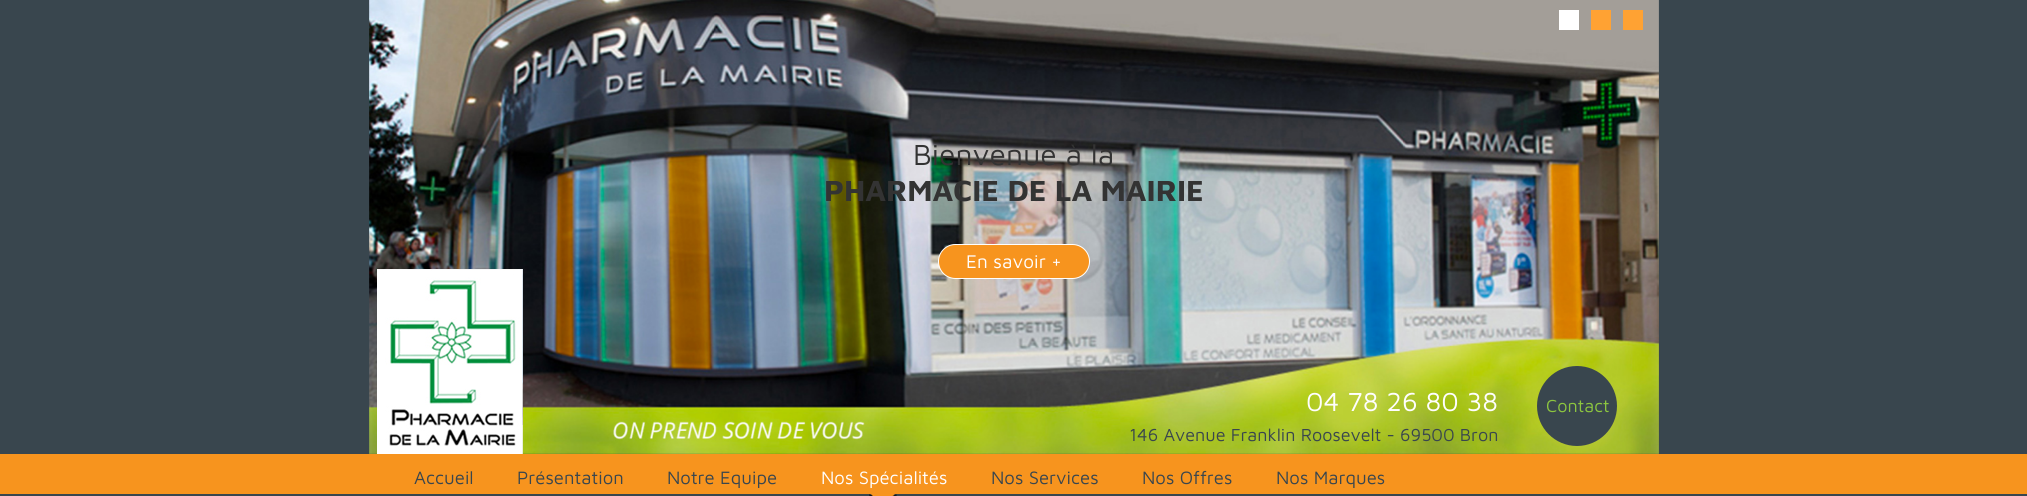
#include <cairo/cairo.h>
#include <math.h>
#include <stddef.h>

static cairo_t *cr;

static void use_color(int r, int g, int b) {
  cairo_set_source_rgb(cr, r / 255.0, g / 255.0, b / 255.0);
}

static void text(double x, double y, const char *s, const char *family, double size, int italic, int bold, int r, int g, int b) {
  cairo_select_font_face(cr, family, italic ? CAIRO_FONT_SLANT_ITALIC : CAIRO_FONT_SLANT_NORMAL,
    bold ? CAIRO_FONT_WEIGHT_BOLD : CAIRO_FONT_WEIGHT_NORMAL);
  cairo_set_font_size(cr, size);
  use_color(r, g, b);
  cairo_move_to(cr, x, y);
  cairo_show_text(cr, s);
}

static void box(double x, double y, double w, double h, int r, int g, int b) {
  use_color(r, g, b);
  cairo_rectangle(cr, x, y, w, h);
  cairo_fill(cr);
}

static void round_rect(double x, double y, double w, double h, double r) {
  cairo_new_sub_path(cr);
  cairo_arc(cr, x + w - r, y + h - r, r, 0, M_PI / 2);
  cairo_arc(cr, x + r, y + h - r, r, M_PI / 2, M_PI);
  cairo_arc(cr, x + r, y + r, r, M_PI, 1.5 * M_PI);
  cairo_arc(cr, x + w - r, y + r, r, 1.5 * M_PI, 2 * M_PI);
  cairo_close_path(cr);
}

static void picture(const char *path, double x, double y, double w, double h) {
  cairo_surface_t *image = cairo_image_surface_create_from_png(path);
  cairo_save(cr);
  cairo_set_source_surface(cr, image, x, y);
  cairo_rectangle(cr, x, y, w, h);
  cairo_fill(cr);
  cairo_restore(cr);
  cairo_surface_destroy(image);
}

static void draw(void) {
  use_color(57, 70, 78);
  cairo_paint(cr);
  picture("img_02.png", 369, 0, 1290, 454);
  picture("img_01.png", 377, 269, 146, 185);
  box(1559, 10, 20, 20, 255, 255, 255);
  box(1591, 10, 20, 20, 255, 162, 51);
  box(1623, 10, 20, 20, 255, 162, 51);
  use_color(247, 148, 30);
  round_rect(938.5, 244.5, 151, 34, 17);
  cairo_fill_preserve(cr);
  use_color(255, 255, 255);
  cairo_set_line_width(cr, 1);
  cairo_stroke(cr);
  use_color(57, 70, 78);
  cairo_arc(cr, 1577, 406, 40, 0, 2 * M_PI);
  cairo_fill(cr);
  box(0, 454, 2027, 40, 247, 148, 30);
  picture("img_03.png", 869, 494, 28, 2);
  text(913, 165, "Bienvenue à la", "Maven Pro", 30, 0, 0, 51, 51, 51);
  text(824, 201, "PHARMACIE DE LA MAIRIE", "Maven Pro", 30, 0, 1, 51, 51, 51);
  text(966, 268, "En savoir +", "Maven Pro", 19, 0, 0, 255, 254, 255);
  text(1306, 411, "04 78 26 80 38", "Maven Pro", 27, 0, 0, 255, 254, 255);
  text(1129, 441, "146 Avenue Franklin Roosevelt - 69500 Bron", "Maven Pro", 18, 0, 0, 57, 70, 78);
  text(1546, 412, "Contact", "Maven Pro", 18, 0, 0, 141, 198, 63);
  text(414, 484, "Accueil", "Maven Pro", 18.5, 0, 0, 57, 70, 78);
  text(517, 484, "Présentation", "Maven Pro", 18.5, 0, 0, 57, 70, 78);
  text(667, 484, "Notre Equipe", "Maven Pro", 18.5, 0, 0, 57, 70, 78);
  text(821, 484, "Nos Spécialités", "Maven Pro", 18.5, 0, 0, 255, 254, 255);
  text(991, 484, "Nos Services", "Maven Pro", 18.5, 0, 0, 57, 70, 78);
  text(1142, 484, "Nos Offres", "Maven Pro", 18.5, 0, 0, 57, 70, 78);
  text(1276, 484, "Nos Marques", "Maven Pro", 18.5, 0, 0, 57, 70, 78);
}

int main(void) {
  cairo_surface_t *surface = cairo_image_surface_create(CAIRO_FORMAT_RGB24, 2027, 496);
  cr = cairo_create(surface);
  cairo_font_options_t *options = cairo_font_options_create();
  cairo_font_options_set_hint_metrics(options, CAIRO_HINT_METRICS_OFF);
  cairo_font_options_set_hint_style(options, CAIRO_HINT_STYLE_NONE);
  cairo_set_font_options(cr, options);
  cairo_set_miter_limit(cr, 4);
  draw();
  cairo_surface_write_to_png(surface, "out.png");
  cairo_font_options_destroy(options);
  cairo_destroy(cr);
  cairo_surface_destroy(surface);
  return 0;
}
